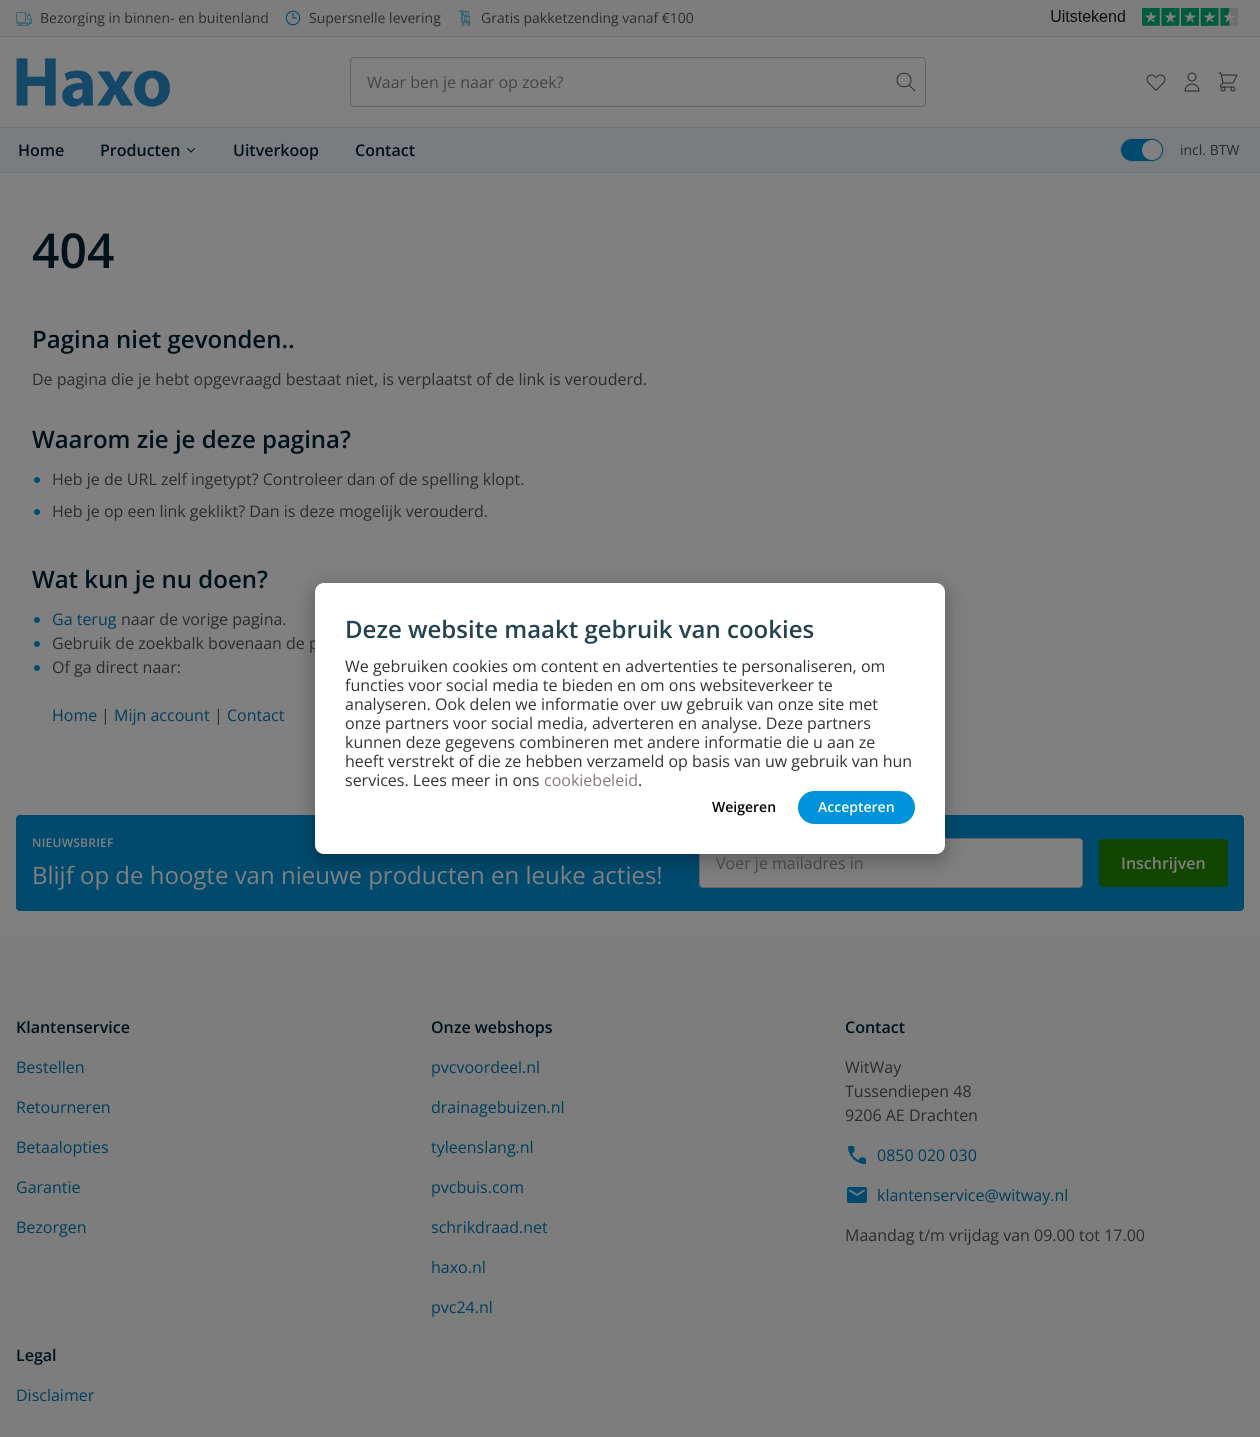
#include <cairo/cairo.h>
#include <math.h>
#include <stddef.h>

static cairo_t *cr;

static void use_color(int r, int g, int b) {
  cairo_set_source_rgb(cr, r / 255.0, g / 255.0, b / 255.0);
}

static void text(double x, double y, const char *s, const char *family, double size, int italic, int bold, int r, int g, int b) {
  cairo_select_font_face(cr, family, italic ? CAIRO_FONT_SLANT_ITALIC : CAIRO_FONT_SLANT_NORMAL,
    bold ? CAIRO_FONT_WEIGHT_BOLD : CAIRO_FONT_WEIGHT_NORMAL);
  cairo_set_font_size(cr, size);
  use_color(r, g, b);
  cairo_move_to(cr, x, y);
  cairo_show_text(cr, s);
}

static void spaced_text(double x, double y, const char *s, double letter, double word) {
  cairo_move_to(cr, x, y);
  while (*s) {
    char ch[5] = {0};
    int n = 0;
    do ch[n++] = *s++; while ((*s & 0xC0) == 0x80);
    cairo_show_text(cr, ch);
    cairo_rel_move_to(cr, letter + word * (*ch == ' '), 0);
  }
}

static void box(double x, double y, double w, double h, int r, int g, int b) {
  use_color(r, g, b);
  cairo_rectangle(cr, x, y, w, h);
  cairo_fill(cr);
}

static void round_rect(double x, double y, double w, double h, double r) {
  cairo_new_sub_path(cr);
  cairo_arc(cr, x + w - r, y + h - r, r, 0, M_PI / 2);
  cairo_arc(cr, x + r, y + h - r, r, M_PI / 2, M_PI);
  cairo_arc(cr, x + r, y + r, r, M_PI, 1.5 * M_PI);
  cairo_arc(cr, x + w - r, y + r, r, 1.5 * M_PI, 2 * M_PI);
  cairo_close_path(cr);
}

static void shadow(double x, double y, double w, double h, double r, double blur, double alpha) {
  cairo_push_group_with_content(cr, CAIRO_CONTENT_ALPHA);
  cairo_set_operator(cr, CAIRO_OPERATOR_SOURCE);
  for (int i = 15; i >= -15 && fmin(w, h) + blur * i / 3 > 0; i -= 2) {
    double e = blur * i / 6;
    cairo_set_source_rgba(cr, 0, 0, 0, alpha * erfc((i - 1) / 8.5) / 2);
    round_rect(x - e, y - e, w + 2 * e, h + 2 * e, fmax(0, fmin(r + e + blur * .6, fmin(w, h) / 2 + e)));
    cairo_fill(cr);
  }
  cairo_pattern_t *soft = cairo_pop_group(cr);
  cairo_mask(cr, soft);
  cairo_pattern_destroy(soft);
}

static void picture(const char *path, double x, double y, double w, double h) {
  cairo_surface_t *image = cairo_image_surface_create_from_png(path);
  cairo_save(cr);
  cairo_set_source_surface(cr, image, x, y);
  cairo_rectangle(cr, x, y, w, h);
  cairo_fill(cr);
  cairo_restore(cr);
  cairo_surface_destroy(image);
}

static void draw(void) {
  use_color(128, 128, 128);
  cairo_paint(cr);
  box(0, 0, 1260, 36, 125, 125, 125);
  box(0, 36, 1260, 1, 115, 115, 115);
  picture("img_01.png", 16, 12, 16, 14);
  picture("img_02.png", 285, 10, 16, 16);
  picture("img_03.png", 459, 10, 12, 16);
  picture("img_04.png", 1051, 8, 187, 18);
  box(0, 127, 1260, 1, 115, 115, 115);
  picture("img_05.png", 16, 58, 154, 49);
  round_rect(350.5, 57.5, 575, 49, 3.5);
  use_color(102, 102, 102);
  cairo_set_line_width(cr, 1);
  cairo_stroke(cr);
  cairo_new_path(cr);
  cairo_move_to(cr, 915, 91);
  cairo_line_to(cr, 909, 85);
  cairo_move_to(cr, 911, 80);
  cairo_curve_to(cr, 911, 89, 897, 89, 897, 80);
  cairo_curve_to(cr, 897, 71, 911, 71, 911, 80);
  cairo_close_path(cr);
  use_color(43, 43, 43);
  cairo_set_line_cap(cr, CAIRO_LINE_CAP_ROUND);
  cairo_set_line_join(cr, CAIRO_LINE_JOIN_ROUND);
  cairo_stroke(cr);
  picture("img_06.png", 1146, 74, 20, 17);
  picture("img_07.png", 1184, 72, 16, 20);
  picture("img_08.png", 1218, 72, 20, 20);
  box(0, 128, 1260, 44, 121, 125, 127);
  box(0, 172, 1260, 1, 115, 115, 115);
  cairo_new_path(cr);
  cairo_move_to(cr, 194.5, 148.5);
  cairo_line_to(cr, 191, 152);
  cairo_line_to(cr, 187.5, 148.5);
  use_color(0, 17, 26);
  cairo_stroke(cr);
  use_color(0, 74, 110);
  round_rect(1120.5, 138.5, 43, 23, 11.5);
  cairo_fill_preserve(cr);
  use_color(115, 116, 118);
  cairo_set_line_cap(cr, CAIRO_LINE_CAP_BUTT);
  cairo_set_line_join(cr, CAIRO_LINE_JOIN_MITER);
  cairo_stroke(cr);
  use_color(128, 128, 128);
  cairo_arc(cr, 1152, 150, 9.5, 0, 2 * M_PI);
  cairo_fill_preserve(cr);
  cairo_stroke(cr);
  use_color(0, 74, 110);
  cairo_arc(cr, 37, 480, 3, 0, 2 * M_PI);
  cairo_fill(cr);
  cairo_arc(cr, 37, 512, 3, 0, 2 * M_PI);
  cairo_fill(cr);
  cairo_arc(cr, 37, 620, 3, 0, 2 * M_PI);
  cairo_fill(cr);
  cairo_arc(cr, 37, 644, 3, 0, 2 * M_PI);
  cairo_fill(cr);
  cairo_arc(cr, 37, 668, 3, 0, 2 * M_PI);
  cairo_fill(cr);
  round_rect(16, 815, 1228, 96, 4);
  cairo_fill(cr);
  use_color(128, 128, 128);
  round_rect(699.5, 838.5, 383, 49, 3.5);
  cairo_fill_preserve(cr);
  use_color(102, 102, 102);
  cairo_stroke(cr);
  use_color(17, 69, 0);
  round_rect(1100, 840, 127, 46, 3);
  cairo_fill_preserve(cr);
  cairo_set_line_width(cr, 2);
  cairo_stroke(cr);
  box(0, 935, 1260, 502, 125, 125, 125);
  picture("img_09.png", 848, 1146, 18, 18);
  picture("img_10.png", 847, 1187, 20, 16);
  use_color(0, 0, 0);
  shadow(315, 589, 630, 271, 9, 10, 0.3);
  text(40, 23, "Bezorging in binnen- en buitenland", "Open Sans", 14, 0, 0, 43, 43, 43);
  text(309, 23, "Supersnelle levering", "Open Sans", 14, 0, 0, 43, 43, 43);
  text(481, 23, "Gratis pakketzending vanaf €100", "Open Sans", 14, 0, 0, 43, 43, 43);
  text(367, 88, "Waar ben je naar op zoek?", "Open Sans", 16, 0, 0, 68, 68, 68);
  text(18, 156, "Home", "Open Sans SemiBold", 16, 0, 0, 0, 17, 26);
  text(100, 156, "Producten", "Open Sans SemiBold", 16, 0, 0, 0, 17, 26);
  text(233, 156, "Uitverkoop", "Open Sans SemiBold", 16, 0, 0, 0, 17, 26);
  text(355, 156, "Contact", "Open Sans SemiBold", 16, 0, 0, 0, 17, 26);
  text(1180, 155, "incl. BTW", "Open Sans", 14, 0, 0, 43, 43, 43);
  text(32, 268, "404", "Open Sans SemiBold", 48, 0, 0, 0, 17, 26);
  text(32, 348, "Pagina niet gevonden..", "Open Sans SemiBold", 24, 0, 0, 0, 17, 26);
  text(32, 385, "De pagina die je hebt opgevraagd bestaat niet, is verplaatst of de link is verouderd.", "Open Sans", 16, 0, 0, 43, 43, 43);
  text(32, 448, "Waarom zie je deze pagina?", "Open Sans SemiBold", 24, 0, 0, 0, 17, 26);
  text(52, 485, "Heb je de URL zelf ingetypt? Controleer dan of de spelling klopt.", "Open Sans", 16, 0, 0, 43, 43, 43);
  text(52, 517, "Heb je op een link geklikt? Dan is deze mogelijk verouderd.", "Open Sans", 16, 0, 0, 43, 43, 43);
  text(32, 588, "Wat kun je nu doen?", "Open Sans SemiBold", 24, 0, 0, 0, 17, 26);
  text(52, 625, "Ga terug", "Open Sans", 16, 0, 0, 0, 61, 90);
  text(121, 625, "naar de vorige pagina.", "Open Sans", 16, 0, 0, 43, 43, 43);
  text(52, 649, "Gebruik de zoekbalk bovenaan de p", "Open Sans", 16, 0, 0, 43, 43, 43);
  text(52, 673, "Of ga direct naar:", "Open Sans", 16, 0, 0, 43, 43, 43);
  text(52, 721, "Home", "Open Sans", 16, 0, 0, 0, 61, 90);
  text(101, 721, "|", "Open Sans", 16, 0, 0, 43, 43, 43);
  text(114, 721, "Mijn account", "Open Sans", 16, 0, 0, 0, 61, 90);
  text(214, 721, "|", "Open Sans", 16, 0, 0, 43, 43, 43);
  text(227, 721, "Contact", "Open Sans", 16, 0, 0, 0, 61, 90);
  cairo_select_font_face(cr, "Open Sans SemiBold", CAIRO_FONT_SLANT_NORMAL, CAIRO_FONT_WEIGHT_NORMAL);
  cairo_set_font_size(cr, 12);
  use_color(128, 128, 128);
  spaced_text(32, 847, "NIEUWSBRIEF", 0.25, 0);
  text(32, 884, "Blijf op de hoogte van nieuwe producten en leuke acties!", "Open Sans", 24, 0, 0, 128, 128, 128);
  text(716, 869, "Voer je mailadres in", "Open Sans", 16, 0, 0, 68, 68, 68);
  text(1121, 869, "Inschrijven", "Open Sans SemiBold", 16, 0, 0, 128, 128, 128);
  text(16, 1033, "Klantenservice", "Open Sans SemiBold", 16, 0, 0, 0, 17, 26);
  text(16, 1073, "Bestellen", "Open Sans", 16, 0, 0, 0, 61, 90);
  text(16, 1113, "Retourneren", "Open Sans", 16, 0, 0, 0, 61, 90);
  text(16, 1153, "Betaalopties", "Open Sans", 16, 0, 0, 0, 61, 90);
  text(16, 1193, "Garantie", "Open Sans", 16, 0, 0, 0, 61, 90);
  text(16, 1233, "Bezorgen", "Open Sans", 16, 0, 0, 0, 61, 90);
  text(431, 1033, "Onze webshops", "Open Sans SemiBold", 16, 0, 0, 0, 17, 26);
  text(431, 1073, "pvcvoordeel.nl", "Open Sans", 16, 0, 0, 0, 61, 90);
  text(431, 1113, "drainagebuizen.nl", "Open Sans", 16, 0, 0, 0, 61, 90);
  text(431, 1153, "tyleenslang.nl", "Open Sans", 16, 0, 0, 0, 61, 90);
  text(431, 1193, "pvcbuis.com", "Open Sans", 16, 0, 0, 0, 61, 90);
  text(431, 1233, "schrikdraad.net", "Open Sans", 16, 0, 0, 0, 61, 90);
  text(431, 1273, "haxo.nl", "Open Sans", 16, 0, 0, 0, 61, 90);
  text(431, 1313, "pvc24.nl", "Open Sans", 16, 0, 0, 0, 61, 90);
  text(16, 1361, "Legal", "Open Sans SemiBold", 16, 0, 0, 0, 17, 26);
  text(16, 1401, "Disclaimer", "Open Sans", 16, 0, 0, 0, 61, 90);
  text(845, 1033, "Contact", "Open Sans SemiBold", 16, 0, 0, 0, 17, 26);
  text(845, 1073, "WitWay", "Open Sans", 16, 0, 0, 43, 43, 43);
  text(845, 1097, "Tussendiepen 48", "Open Sans", 16, 0, 0, 43, 43, 43);
  text(845, 1121, "9206 AE Drachten", "Open Sans", 16, 0, 0, 43, 43, 43);
  text(877, 1161, "0850 020 030", "Open Sans", 16, 0, 0, 0, 61, 90);
  text(877, 1201, "klantenservice@witway.nl", "Open Sans", 16, 0, 0, 0, 61, 90);
  text(845, 1241, "Maandag t/m vrijdag van 09.00 tot 17.00", "Open Sans", 16, 0, 0, 43, 43, 43);
  use_color(255, 255, 255);
  round_rect(315, 583, 630, 271, 9);
  cairo_fill(cr);
  text(345, 638, "Deze website maakt gebruik van cookies", "Open Sans SemiBold", 24, 0, 0, 37, 66, 80);
  text(345, 672, "We gebruiken cookies om content en advertenties te personaliseren, om", "Open Sans", 16, 0, 0, 51, 51, 51);
  text(345, 691, "functies voor social media te bieden en om ons websiteverkeer te", "Open Sans", 16, 0, 0, 51, 51, 51);
  text(345, 710, "analyseren. Ook delen we informatie over uw gebruik van onze site met", "Open Sans", 16, 0, 0, 51, 51, 51);
  text(345, 729, "onze partners voor social media, adverteren en analyse. Deze partners", "Open Sans", 16, 0, 0, 51, 51, 51);
  text(345, 748, "kunnen deze gegevens combineren met andere informatie die u aan ze", "Open Sans", 16, 0, 0, 51, 51, 51);
  text(345, 767, "heeft verstrekt of die ze hebben verzameld op basis van uw gebruik van hun", "Open Sans", 16, 0, 0, 51, 51, 51);
  text(345, 786, "services. Lees meer in ons", "Open Sans", 16, 0, 0, 51, 51, 51);
  text(544, 786, "cookiebeleid", "Open Sans", 16, 0, 0, 134, 121, 120);
  text(638, 786, ".", "Open Sans", 16, 0, 0, 51, 51, 51);
  text(712, 812, "Weigeren", "Open Sans SemiBold", 14, 0, 0, 0, 0, 0);
  use_color(0, 147, 219);
  round_rect(798, 791, 117, 33, 16.5);
  cairo_fill(cr);
  text(818, 812, "Accepteren", "Open Sans SemiBold", 14, 0, 0, 255, 255, 255);
}

int main(void) {
  cairo_surface_t *surface = cairo_image_surface_create(CAIRO_FORMAT_RGB24, 1260, 1437);
  cr = cairo_create(surface);
  cairo_font_options_t *options = cairo_font_options_create();
  cairo_font_options_set_hint_metrics(options, CAIRO_HINT_METRICS_OFF);
  cairo_font_options_set_hint_style(options, CAIRO_HINT_STYLE_NONE);
  cairo_set_font_options(cr, options);
  cairo_set_miter_limit(cr, 4);
  draw();
  cairo_surface_write_to_png(surface, "out.png");
  cairo_font_options_destroy(options);
  cairo_destroy(cr);
  cairo_surface_destroy(surface);
  return 0;
}
